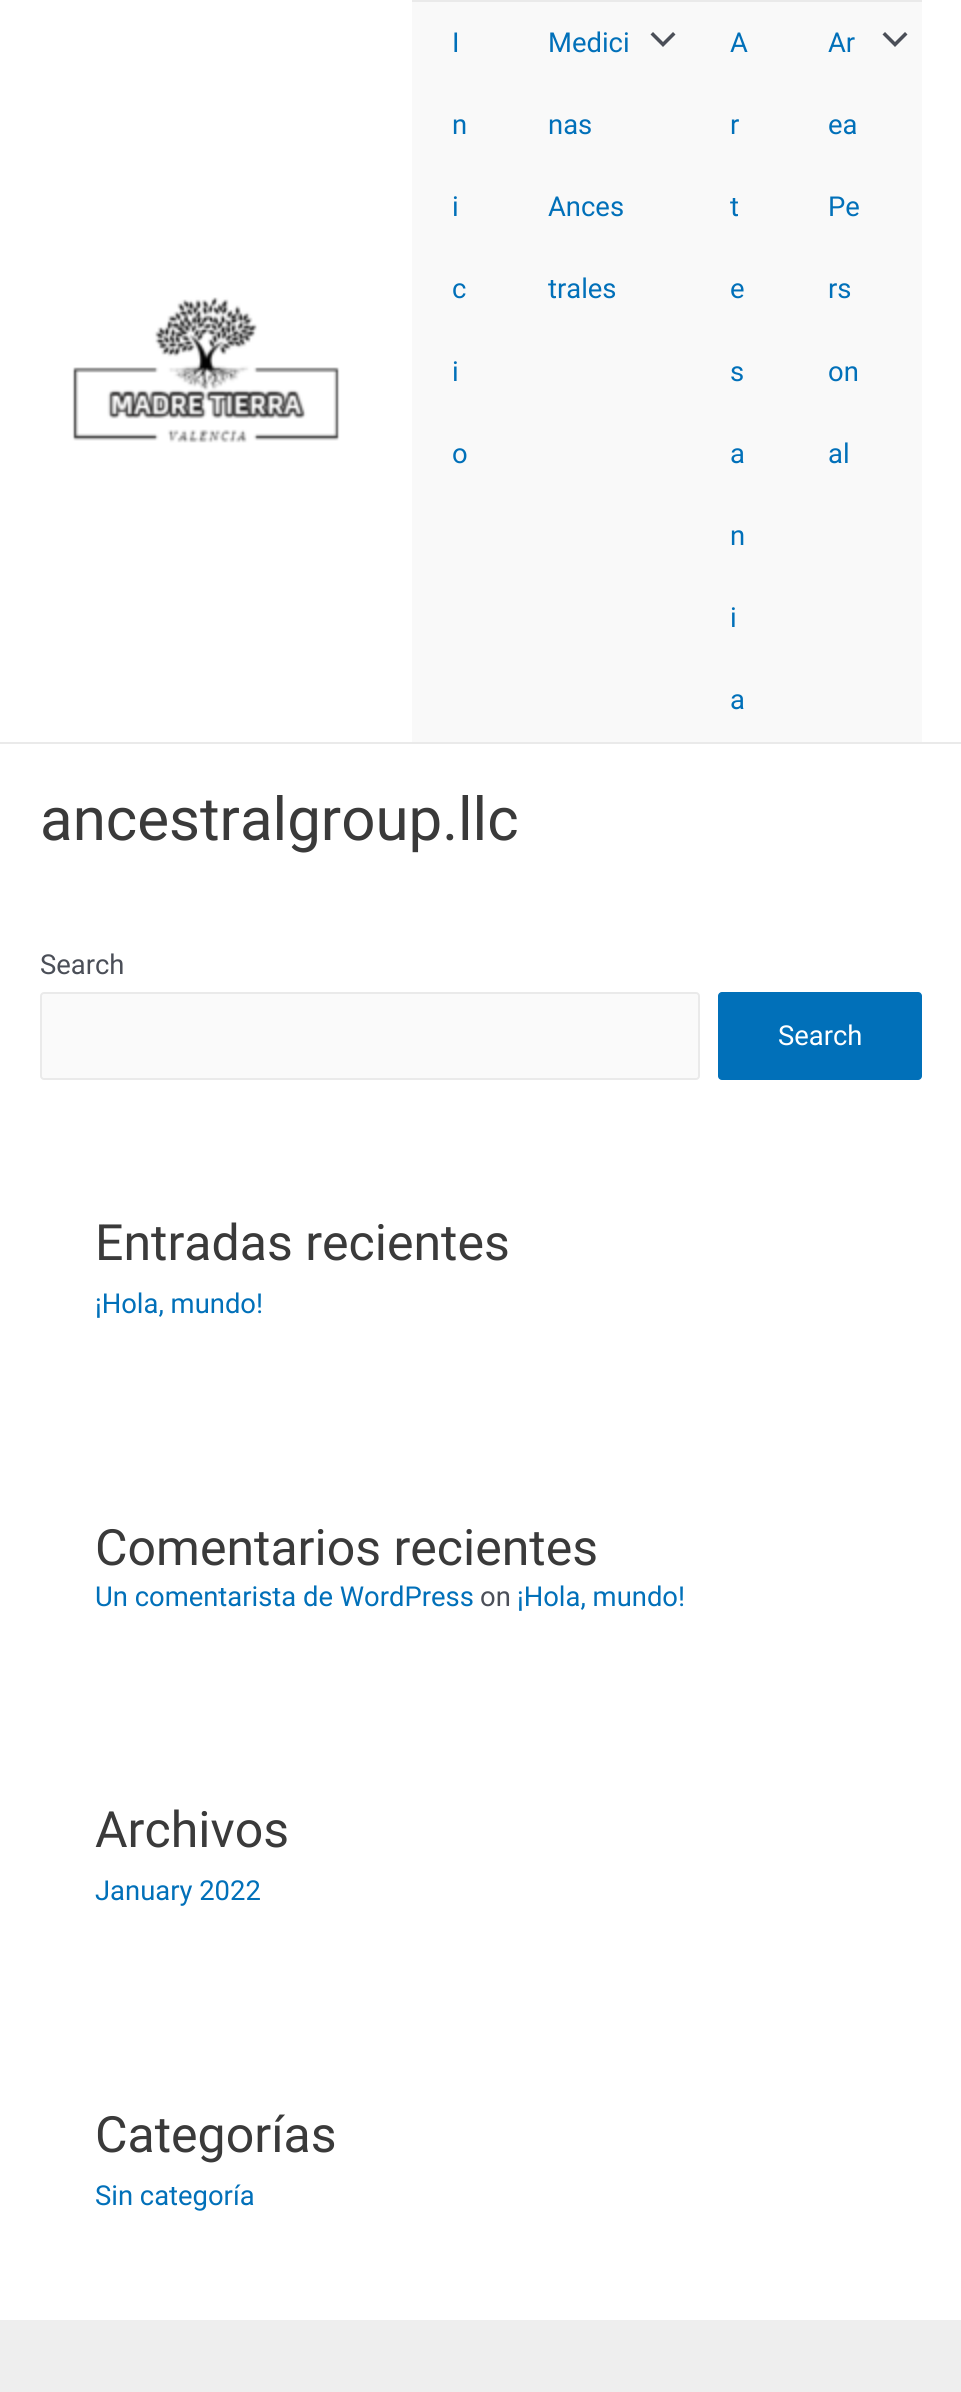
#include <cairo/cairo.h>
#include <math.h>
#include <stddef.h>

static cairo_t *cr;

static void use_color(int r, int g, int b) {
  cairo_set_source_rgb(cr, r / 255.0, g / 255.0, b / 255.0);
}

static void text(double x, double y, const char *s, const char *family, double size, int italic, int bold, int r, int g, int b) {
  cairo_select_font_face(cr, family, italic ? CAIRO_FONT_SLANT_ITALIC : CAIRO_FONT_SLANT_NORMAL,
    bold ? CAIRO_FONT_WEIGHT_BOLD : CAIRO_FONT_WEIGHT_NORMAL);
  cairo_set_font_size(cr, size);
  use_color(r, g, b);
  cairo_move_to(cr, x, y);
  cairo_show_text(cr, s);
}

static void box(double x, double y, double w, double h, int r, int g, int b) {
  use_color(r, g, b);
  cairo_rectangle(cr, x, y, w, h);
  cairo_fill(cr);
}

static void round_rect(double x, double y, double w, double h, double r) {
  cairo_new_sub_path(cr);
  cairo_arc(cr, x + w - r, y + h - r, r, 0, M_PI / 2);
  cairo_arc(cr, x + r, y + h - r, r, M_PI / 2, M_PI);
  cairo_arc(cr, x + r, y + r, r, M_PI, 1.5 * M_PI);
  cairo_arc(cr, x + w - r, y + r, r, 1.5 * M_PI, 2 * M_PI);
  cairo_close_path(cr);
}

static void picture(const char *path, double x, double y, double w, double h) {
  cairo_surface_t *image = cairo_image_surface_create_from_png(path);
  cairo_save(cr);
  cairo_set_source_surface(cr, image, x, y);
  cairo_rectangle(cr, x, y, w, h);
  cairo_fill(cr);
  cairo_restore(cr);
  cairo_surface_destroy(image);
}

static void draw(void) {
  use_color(255, 255, 255);
  cairo_paint(cr);
  box(0, 742, 961, 2, 234, 234, 234);
  picture("img_01.png", 72, 297, 268, 146);
  box(412, 2, 510, 740, 249, 249, 249);
  box(412, 0, 510, 2, 234, 234, 234);
  use_color(75, 79, 88);
  cairo_new_path(cr);
  cairo_move_to(cr, 650.5, 34.5);
  cairo_line_to(cr, 663, 47);
  cairo_line_to(cr, 675.5, 34.5);
  cairo_line_to(cr, 673, 32);
  cairo_line_to(cr, 663, 42);
  cairo_line_to(cr, 653, 32);
  cairo_close_path(cr);
  cairo_fill(cr);
  cairo_new_path(cr);
  cairo_move_to(cr, 882.5, 34.5);
  cairo_line_to(cr, 895, 47);
  cairo_line_to(cr, 907.5, 34.5);
  cairo_line_to(cr, 905, 32);
  cairo_line_to(cr, 895, 42);
  cairo_line_to(cr, 885, 32);
  cairo_close_path(cr);
  cairo_fill(cr);
  use_color(250, 250, 250);
  round_rect(41, 993, 658, 86, 3);
  cairo_fill_preserve(cr);
  use_color(234, 234, 234);
  cairo_stroke(cr);
  use_color(1, 112, 185);
  round_rect(718, 992, 204, 88, 4);
  cairo_fill(cr);
  box(0, 2320, 961, 72, 238, 238, 238);
  text(452, 52, "I", "Roboto", 27.4, 0, 0, 1, 112, 185);
  text(452, 134, "n", "Roboto", 27.4, 0, 0, 1, 112, 185);
  text(452, 216, "i", "Roboto", 27.4, 0, 0, 1, 112, 185);
  text(452, 298, "c", "Roboto", 27.4, 0, 0, 1, 112, 185);
  text(452, 381, "i", "Roboto", 27.4, 0, 0, 1, 112, 185);
  text(452, 463, "o", "Roboto", 27.4, 0, 0, 1, 112, 185);
  text(548, 52, "Medici", "Roboto", 27.4, 0, 0, 1, 112, 185);
  text(548, 134, "nas", "Roboto", 27.4, 0, 0, 1, 112, 185);
  text(548, 216, "Ances", "Roboto", 27.4, 0, 0, 1, 112, 185);
  text(548, 298, "trales", "Roboto", 27.4, 0, 0, 1, 112, 185);
  text(730, 52, "A", "Roboto", 27.4, 0, 0, 1, 112, 185);
  text(730, 134, "r", "Roboto", 27.4, 0, 0, 1, 112, 185);
  text(730, 216, "t", "Roboto", 27.4, 0, 0, 1, 112, 185);
  text(730, 298, "e", "Roboto", 27.4, 0, 0, 1, 112, 185);
  text(730, 381, "s", "Roboto", 27.4, 0, 0, 1, 112, 185);
  text(730, 463, "a", "Roboto", 27.4, 0, 0, 1, 112, 185);
  text(730, 545, "n", "Roboto", 27.4, 0, 0, 1, 112, 185);
  text(730, 627, "i", "Roboto", 27.4, 0, 0, 1, 112, 185);
  text(730, 709, "a", "Roboto", 27.4, 0, 0, 1, 112, 185);
  text(828, 52, "Ar", "Roboto", 27.4, 0, 0, 1, 112, 185);
  text(828, 134, "ea", "Roboto", 27.4, 0, 0, 1, 112, 185);
  text(828, 216, "Pe", "Roboto", 27.4, 0, 0, 1, 112, 185);
  text(828, 298, "rs", "Roboto", 27.4, 0, 0, 1, 112, 185);
  text(828, 381, "on", "Roboto", 27.4, 0, 0, 1, 112, 185);
  text(828, 463, "al", "Roboto", 27.4, 0, 0, 1, 112, 185);
  text(40, 840, "ancestralgroup.llc", "Roboto", 60, 0, 0, 58, 58, 58);
  text(40, 974, "Search", "Roboto", 27.4, 0, 0, 75, 79, 88);
  text(778, 1045, "Search", "Roboto", 27.4, 0, 0, 255, 255, 255);
  text(95, 1260, "Entradas recientes", "Roboto", 50, 0, 0, 58, 58, 58);
  text(95, 1313, "¡Hola, mundo!", "Roboto", 27.4, 0, 0, 1, 112, 185);
  text(95, 1565, "Comentarios recientes", "Roboto", 50, 0, 0, 58, 58, 58);
  text(95, 1606, "Un comentarista de WordPress", "Roboto", 27.4, 0, 0, 1, 112, 185);
  text(480, 1606, "on", "Roboto", 27.4, 0, 0, 75, 79, 88);
  text(517, 1606, "¡Hola, mundo!", "Roboto", 27.4, 0, 0, 1, 112, 185);
  text(95, 1847, "Archivos", "Roboto", 50, 0, 0, 58, 58, 58);
  text(95, 1900, "January 2022", "Roboto", 27.4, 0, 0, 1, 112, 185);
  text(95, 2152, "Categorías", "Roboto", 50, 0, 0, 58, 58, 58);
  text(95, 2205, "Sin categoría", "Roboto", 27.4, 0, 0, 1, 112, 185);
}

int main(void) {
  cairo_surface_t *surface = cairo_image_surface_create(CAIRO_FORMAT_RGB24, 961, 2392);
  cr = cairo_create(surface);
  cairo_font_options_t *options = cairo_font_options_create();
  cairo_font_options_set_hint_metrics(options, CAIRO_HINT_METRICS_OFF);
  cairo_font_options_set_hint_style(options, CAIRO_HINT_STYLE_NONE);
  cairo_set_font_options(cr, options);
  cairo_set_miter_limit(cr, 4);
  draw();
  cairo_surface_write_to_png(surface, "out.png");
  cairo_font_options_destroy(options);
  cairo_destroy(cr);
  cairo_surface_destroy(surface);
  return 0;
}
